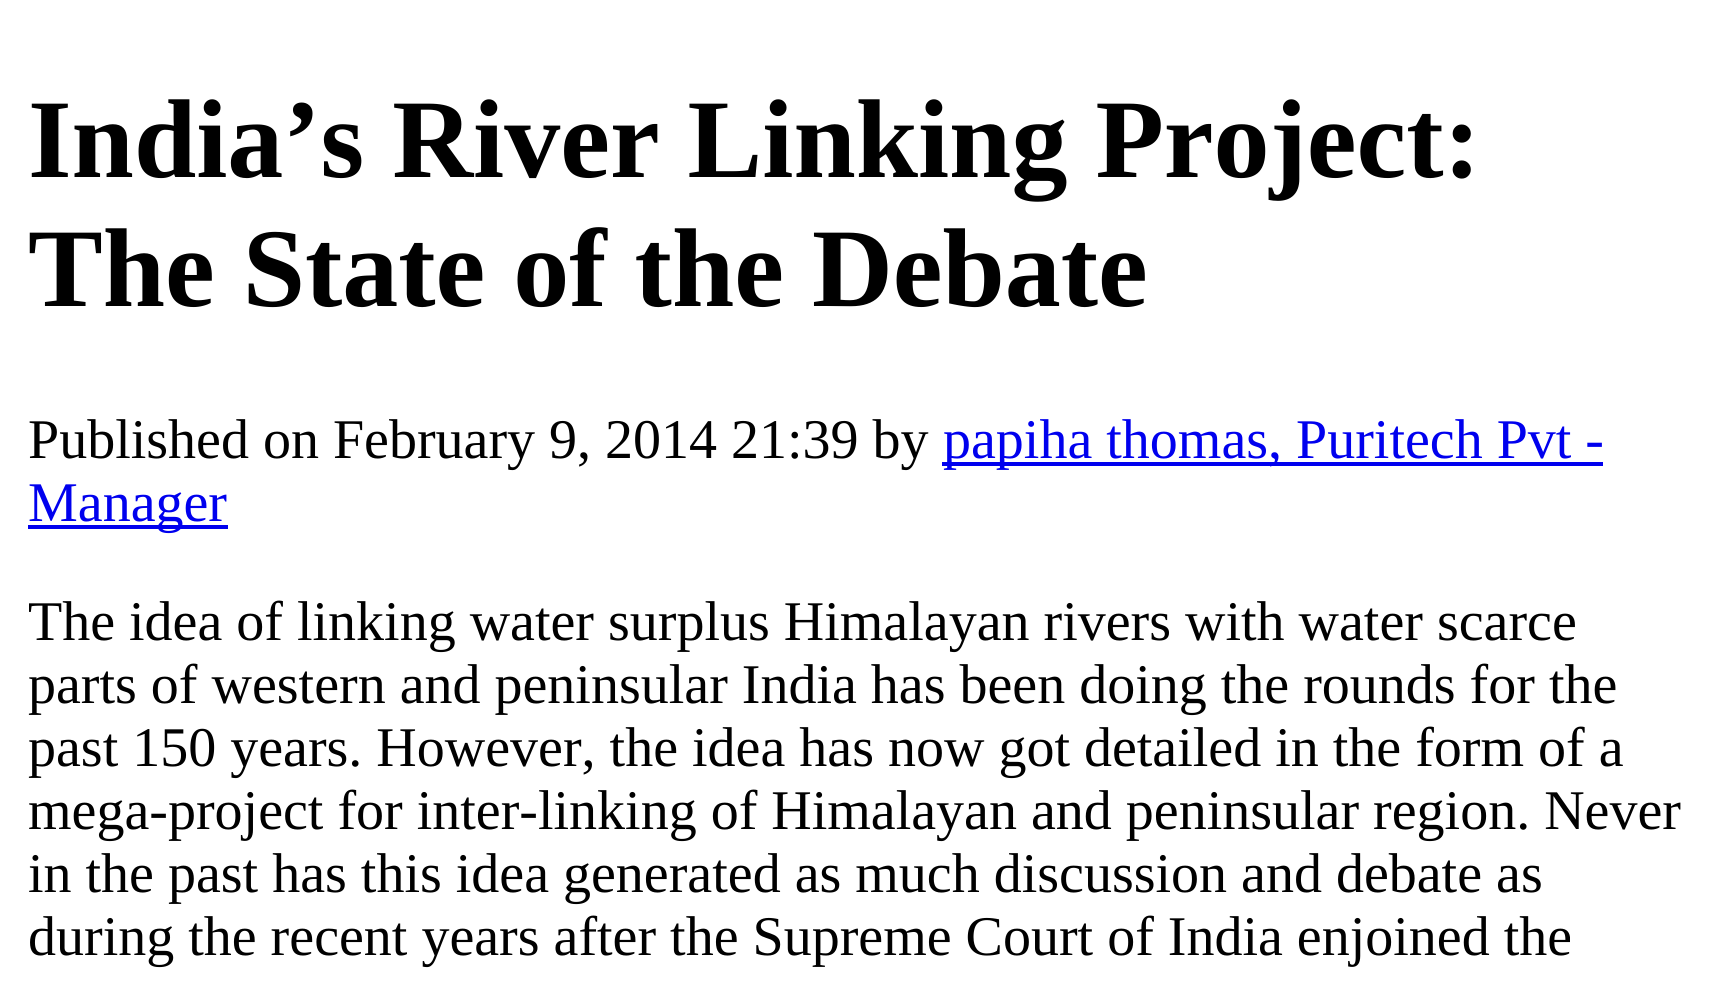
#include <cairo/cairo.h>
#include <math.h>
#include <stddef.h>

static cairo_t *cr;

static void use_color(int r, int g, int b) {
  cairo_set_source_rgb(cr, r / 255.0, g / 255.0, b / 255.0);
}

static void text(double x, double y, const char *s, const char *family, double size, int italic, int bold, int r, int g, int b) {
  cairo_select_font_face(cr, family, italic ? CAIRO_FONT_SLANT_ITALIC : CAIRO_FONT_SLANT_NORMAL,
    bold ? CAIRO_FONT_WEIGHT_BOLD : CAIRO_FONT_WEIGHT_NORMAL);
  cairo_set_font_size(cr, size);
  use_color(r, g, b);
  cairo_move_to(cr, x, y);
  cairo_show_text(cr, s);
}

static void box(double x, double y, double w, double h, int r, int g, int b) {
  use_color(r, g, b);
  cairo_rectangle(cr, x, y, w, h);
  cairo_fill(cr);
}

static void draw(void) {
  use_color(255, 255, 255);
  cairo_paint(cr);
  box(942, 462, 661, 4, 0, 0, 238);
  box(28, 525, 200, 4, 0, 0, 238);
  text(28, 177, "India’s River Linking Project:", "Liberation Serif", 112, 0, 1, 0, 0, 0);
  text(28, 306, "The State of the Debate", "Liberation Serif", 112, 0, 1, 0, 0, 0);
  text(28, 458, "Published on February 9, 2014 21:39 by", "Liberation Serif", 56, 0, 0, 0, 0, 0);
  text(943, 458, "papiha thomas, Puritech Pvt -", "Liberation Serif", 56, 0, 0, 0, 0, 238);
  text(28, 521, "Manager", "Liberation Serif", 56, 0, 0, 0, 0, 238);
  text(28, 640, "The idea of linking water surplus Himalayan rivers with water scarce", "Liberation Serif", 56, 0, 0, 0, 0, 0);
  text(28, 703, "parts of western and peninsular India has been doing the rounds for the", "Liberation Serif", 56, 0, 0, 0, 0, 0);
  text(28, 766, "past 150 years. However, the idea has now got detailed in the form of a", "Liberation Serif", 56, 0, 0, 0, 0, 0);
  text(28, 829, "mega-project for inter-linking of Himalayan and peninsular region. Never", "Liberation Serif", 56, 0, 0, 0, 0, 0);
  text(28, 892, "in the past has this idea generated as much discussion and debate as", "Liberation Serif", 56, 0, 0, 0, 0, 0);
  text(28, 955, "during the recent years after the Supreme Court of India enjoined the", "Liberation Serif", 56, 0, 0, 0, 0, 0);
}

int main(void) {
  cairo_surface_t *surface = cairo_image_surface_create(CAIRO_FORMAT_RGB24, 1709, 982);
  cr = cairo_create(surface);
  cairo_font_options_t *options = cairo_font_options_create();
  cairo_font_options_set_hint_metrics(options, CAIRO_HINT_METRICS_OFF);
  cairo_font_options_set_hint_style(options, CAIRO_HINT_STYLE_NONE);
  cairo_set_font_options(cr, options);
  cairo_set_miter_limit(cr, 4);
  draw();
  cairo_surface_write_to_png(surface, "out.png");
  cairo_font_options_destroy(options);
  cairo_destroy(cr);
  cairo_surface_destroy(surface);
  return 0;
}
